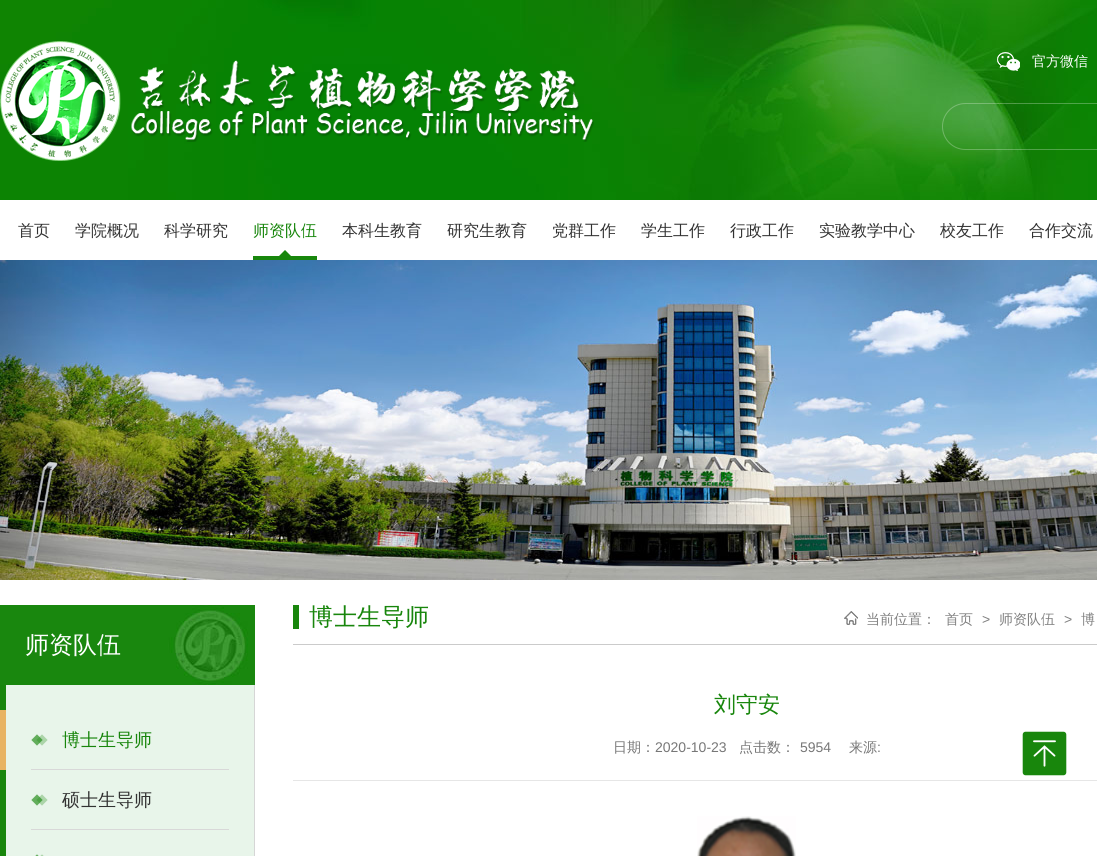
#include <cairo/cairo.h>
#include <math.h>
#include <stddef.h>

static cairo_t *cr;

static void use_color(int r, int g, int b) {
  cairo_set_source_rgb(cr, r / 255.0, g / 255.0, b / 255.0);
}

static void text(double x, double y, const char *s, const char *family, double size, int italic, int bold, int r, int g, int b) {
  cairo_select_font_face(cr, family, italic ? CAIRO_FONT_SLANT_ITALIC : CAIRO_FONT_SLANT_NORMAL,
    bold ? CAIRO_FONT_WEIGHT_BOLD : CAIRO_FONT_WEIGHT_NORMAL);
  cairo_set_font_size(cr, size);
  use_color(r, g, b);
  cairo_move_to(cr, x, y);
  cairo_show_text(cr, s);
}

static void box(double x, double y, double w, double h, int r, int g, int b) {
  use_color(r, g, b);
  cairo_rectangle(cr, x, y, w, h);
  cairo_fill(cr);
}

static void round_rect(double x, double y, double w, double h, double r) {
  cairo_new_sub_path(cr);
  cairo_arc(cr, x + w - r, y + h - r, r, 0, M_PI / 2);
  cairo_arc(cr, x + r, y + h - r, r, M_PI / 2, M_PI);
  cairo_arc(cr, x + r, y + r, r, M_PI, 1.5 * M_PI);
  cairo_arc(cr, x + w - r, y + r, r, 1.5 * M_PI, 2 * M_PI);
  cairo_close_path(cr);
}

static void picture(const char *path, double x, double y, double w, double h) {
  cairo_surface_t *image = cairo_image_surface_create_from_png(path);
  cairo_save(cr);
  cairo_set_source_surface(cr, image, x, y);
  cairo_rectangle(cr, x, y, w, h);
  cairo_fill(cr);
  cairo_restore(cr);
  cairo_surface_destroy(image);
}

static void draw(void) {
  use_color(255, 255, 255);
  cairo_paint(cr);
  picture("img_01.png", 0, 0, 1097, 200);
  picture("img_02.png", 0, 41, 594, 120);
  picture("img_03.png", 997, 52, 23, 19);
  round_rect(942.5, 103.5, 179, 46, 23);
  cairo_set_source_rgba(cr, 1, 1, 1, 0.27);
  cairo_set_line_width(cr, 1);
  cairo_stroke(cr);
  use_color(24, 134, 12);
  cairo_new_path(cr);
  cairo_move_to(cr, 291, 256);
  cairo_line_to(cr, 279, 256);
  cairo_line_to(cr, 285, 250);
  cairo_close_path(cr);
  cairo_fill(cr);
  box(253, 256, 64, 4, 24, 134, 12);
  picture("img_04.png", 0, 260, 1097, 320);
  picture("img_05.png", 0, 605, 255, 80);
  box(6, 685, 248, 171, 232, 245, 234);
  box(254, 685, 1, 171, 214, 214, 214);
  use_color(24, 134, 12);
  cairo_new_path(cr);
  cairo_move_to(cr, 0, 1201);
  cairo_line_to(cr, 0, 685);
  cairo_line_to(cr, 6, 685);
  cairo_line_to(cr, 6, 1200);
  cairo_close_path(cr);
  cairo_fill(cr);
  box(0, 710, 6, 60, 232, 179, 99);
  picture("img_06.png", 31, 734, 17, 12);
  box(31, 769, 198, 1, 216, 216, 216);
  picture("img_06.png", 31, 794, 17, 12);
  box(31, 829, 198, 1, 216, 216, 216);
  picture("img_07.png", 35, 854, 9, 2);
  box(293, 644, 804, 1, 203, 203, 203);
  box(293, 605, 6, 24, 24, 134, 12);
  picture("img_08.png", 844, 611, 14, 14);
  box(293, 780, 804, 1, 230, 230, 230);
  picture("img_09.png", 697, 816, 99, 40);
  picture("img_10.png", 1022, 731, 45, 45);
  text(1032, 66, "官方微信", "WenQuanYi Zen Hei Medium", 14, 0, 0, 255, 255, 255);
  text(18, 236, "首页", "WenQuanYi Zen Hei Medium", 16, 0, 0, 50, 50, 50);
  text(75, 236, "学院概况", "WenQuanYi Zen Hei Medium", 16, 0, 0, 50, 50, 50);
  text(164, 236, "科学研究", "WenQuanYi Zen Hei Medium", 16, 0, 0, 50, 50, 50);
  text(253, 236, "师资队伍", "WenQuanYi Zen Hei Medium", 16, 0, 0, 24, 134, 12);
  text(342, 236, "本科生教育", "WenQuanYi Zen Hei Medium", 16, 0, 0, 50, 50, 50);
  text(447, 236, "研究生教育", "WenQuanYi Zen Hei Medium", 16, 0, 0, 50, 50, 50);
  text(552, 236, "党群工作", "WenQuanYi Zen Hei Medium", 16, 0, 0, 50, 50, 50);
  text(641, 236, "学生工作", "WenQuanYi Zen Hei Medium", 16, 0, 0, 50, 50, 50);
  text(730, 236, "行政工作", "WenQuanYi Zen Hei Medium", 16, 0, 0, 50, 50, 50);
  text(819, 236, "实验教学中心", "WenQuanYi Zen Hei Medium", 16, 0, 0, 50, 50, 50);
  text(940, 236, "校友工作", "WenQuanYi Zen Hei Medium", 16, 0, 0, 50, 50, 50);
  text(1029, 236, "合作交流", "WenQuanYi Zen Hei Medium", 16, 0, 0, 50, 50, 50);
  text(25, 653, "师资队伍", "WenQuanYi Zen Hei Medium", 24, 0, 0, 255, 255, 255);
  text(62, 746, "博士生导师", "WenQuanYi Zen Hei Medium", 18, 0, 0, 24, 134, 12);
  text(62, 806, "硕士生导师", "WenQuanYi Zen Hei Medium", 18, 0, 0, 50, 50, 50);
  text(309, 625, "博士生导师", "WenQuanYi Zen Hei Medium", 24, 0, 0, 24, 134, 12);
  text(866, 624, "当前位置：", "WenQuanYi Zen Hei Medium", 14, 0, 0, 128, 128, 128);
  text(945, 624, "首页", "WenQuanYi Zen Hei Medium", 14, 0, 0, 128, 128, 128);
  text(982, 624, ">", "Liberation Sans", 14, 0, 0, 128, 128, 128);
  text(999, 624, "师资队伍", "WenQuanYi Zen Hei Medium", 14, 0, 0, 128, 128, 128);
  text(1064, 624, ">", "Liberation Sans", 14, 0, 0, 128, 128, 128);
  text(1081, 624, "博", "WenQuanYi Zen Hei Medium", 14, 0, 0, 128, 128, 128);
  text(714, 712, "刘守安", "WenQuanYi Zen Hei Medium", 22, 0, 0, 24, 134, 12);
  text(613, 752, "日期：", "WenQuanYi Zen Hei Medium", 14, 0, 0, 119, 119, 119);
  text(655, 752, "2020-10-23", "Liberation Sans", 14, 0, 0, 119, 119, 119);
  text(739, 752, "点击数：", "WenQuanYi Zen Hei Medium", 14, 0, 0, 119, 119, 119);
  text(800, 752, "5954", "Liberation Sans", 14, 0, 0, 119, 119, 119);
  text(849, 752, "来源", "WenQuanYi Zen Hei Medium", 14, 0, 0, 119, 119, 119);
  text(877, 752, ":", "Liberation Sans", 14, 0, 0, 119, 119, 119);
}

int main(void) {
  cairo_surface_t *surface = cairo_image_surface_create(CAIRO_FORMAT_RGB24, 1097, 856);
  cr = cairo_create(surface);
  cairo_font_options_t *options = cairo_font_options_create();
  cairo_font_options_set_hint_metrics(options, CAIRO_HINT_METRICS_OFF);
  cairo_font_options_set_hint_style(options, CAIRO_HINT_STYLE_NONE);
  cairo_set_font_options(cr, options);
  cairo_set_miter_limit(cr, 4);
  draw();
  cairo_surface_write_to_png(surface, "out.png");
  cairo_font_options_destroy(options);
  cairo_destroy(cr);
  cairo_surface_destroy(surface);
  return 0;
}
